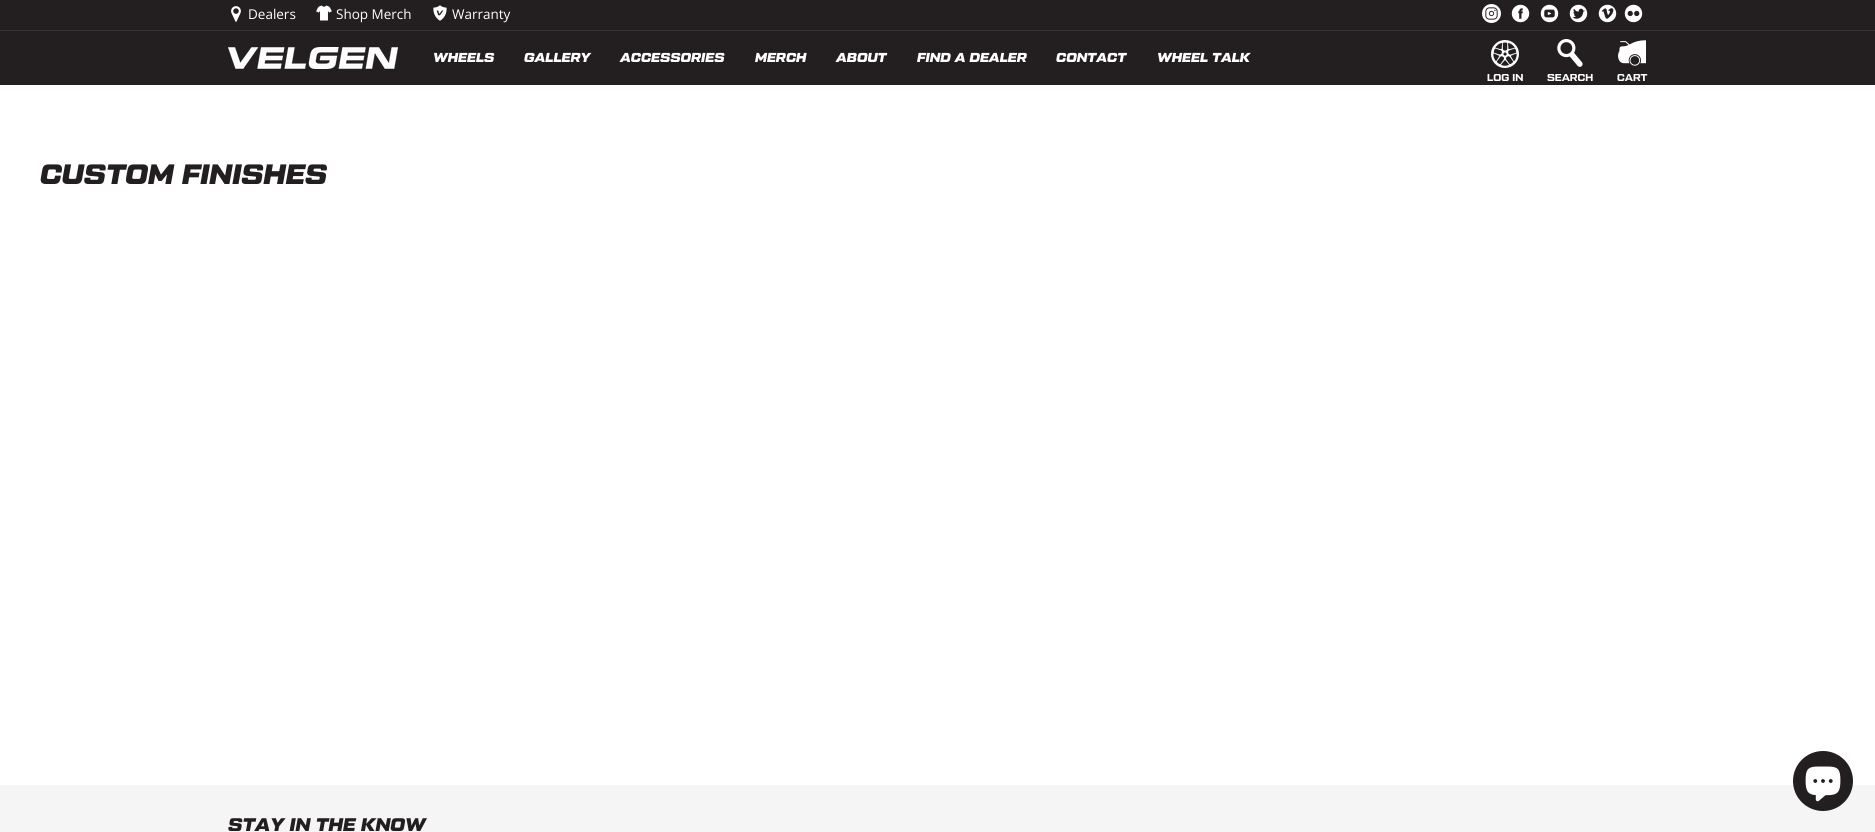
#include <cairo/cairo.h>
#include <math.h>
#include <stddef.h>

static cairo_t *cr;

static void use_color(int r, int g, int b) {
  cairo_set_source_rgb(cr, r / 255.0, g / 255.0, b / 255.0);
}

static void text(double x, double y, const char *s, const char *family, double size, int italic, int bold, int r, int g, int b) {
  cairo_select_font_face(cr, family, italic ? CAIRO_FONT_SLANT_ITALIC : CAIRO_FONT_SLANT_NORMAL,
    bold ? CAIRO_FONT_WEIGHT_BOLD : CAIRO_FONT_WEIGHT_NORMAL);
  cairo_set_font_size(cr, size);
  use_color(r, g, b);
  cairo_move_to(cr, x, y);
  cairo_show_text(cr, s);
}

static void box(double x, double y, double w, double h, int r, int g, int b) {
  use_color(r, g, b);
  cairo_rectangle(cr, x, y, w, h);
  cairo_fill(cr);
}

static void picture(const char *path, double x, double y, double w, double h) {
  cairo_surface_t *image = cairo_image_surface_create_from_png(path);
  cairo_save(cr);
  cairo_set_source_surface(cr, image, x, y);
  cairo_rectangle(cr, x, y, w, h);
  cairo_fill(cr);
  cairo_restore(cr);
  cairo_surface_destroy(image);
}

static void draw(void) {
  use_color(255, 255, 255);
  cairo_paint(cr);
  box(0, 0, 1875, 30, 35, 31, 32);
  picture("img_01.png", 231, 6, 10, 16);
  picture("img_02.png", 316, 5, 16, 16);
  picture("img_03.png", 433, 5, 14, 16);
  picture("img_04.png", 1482, 4, 19, 19);
  picture("img_05.png", 1511, 4, 19, 19);
  picture("img_06.png", 1540, 4, 19, 19);
  picture("img_07.png", 1569, 4, 19, 19);
  picture("img_08.png", 1598, 4, 19, 19);
  picture("img_09.png", 1624, 4, 19, 19);
  box(0, 31, 1875, 54, 35, 31, 32);
  box(0, 30, 1875, 1, 57, 53, 54);
  picture("img_10.png", 228, 47, 170, 22);
  picture("img_11.png", 1491, 40, 28, 28);
  picture("img_12.png", 1557, 39, 26, 28);
  picture("img_13.png", 1618, 40, 28, 26);
  box(0, 785, 1875, 47, 245, 245, 245);
  use_color(35, 31, 32);
  cairo_arc(cr, 1823, 781, 30, 0, 2 * M_PI);
  cairo_fill(cr);
  picture("img_14.png", 1805, 766, 36, 36);
  text(248, 19, "Dealers", "Open Sans", 13.5, 0, 0, 255, 255, 255);
  text(336, 19, "Shop Merch", "Open Sans", 13.5, 0, 0, 255, 255, 255);
  text(452, 19, "Warranty", "Open Sans", 13.5, 0, 0, 255, 255, 255);
  text(433, 62, "WHEELS", "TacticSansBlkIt", 13, 1, 0, 255, 255, 255);
  text(524, 62, "GALLERY", "TacticSansBlkIt", 13, 1, 0, 255, 255, 255);
  text(620, 62, "ACCESSORIES", "TacticSansBlkIt", 13, 1, 0, 255, 255, 255);
  text(755, 62, "MERCH", "TacticSansBlkIt", 13, 1, 0, 255, 255, 255);
  text(836, 62, "ABOUT", "TacticSansBlkIt", 13, 1, 0, 255, 255, 255);
  text(917, 62, "FIND A DEALER", "TacticSansBlkIt", 13, 1, 0, 255, 255, 255);
  text(1056, 62, "CONTACT", "TacticSansBlkIt", 13, 1, 0, 255, 255, 255);
  text(1157, 62, "WHEEL TALK", "TacticSansBlkIt", 13, 1, 0, 255, 255, 255);
  text(1487, 81, "LOG IN", "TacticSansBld", 10, 0, 0, 255, 255, 255);
  text(1547, 81, "SEARCH", "TacticSansBld", 10, 0, 0, 255, 255, 255);
  text(1617, 81, "CART", "TacticSansBld", 10, 0, 0, 255, 255, 255);
  text(40, 184, "CUSTOM FINISHES", "TacticSansBlkIt", 28, 1, 0, 35, 31, 32);
  text(228, 831, "STAY IN THE KNOW", "TacticSansBlkIt", 18.25, 1, 0, 35, 31, 32);
}

int main(void) {
  cairo_surface_t *surface = cairo_image_surface_create(CAIRO_FORMAT_RGB24, 1875, 832);
  cr = cairo_create(surface);
  cairo_font_options_t *options = cairo_font_options_create();
  cairo_font_options_set_hint_metrics(options, CAIRO_HINT_METRICS_OFF);
  cairo_font_options_set_hint_style(options, CAIRO_HINT_STYLE_NONE);
  cairo_set_font_options(cr, options);
  cairo_set_miter_limit(cr, 4);
  draw();
  cairo_surface_write_to_png(surface, "out.png");
  cairo_font_options_destroy(options);
  cairo_destroy(cr);
  cairo_surface_destroy(surface);
  return 0;
}
